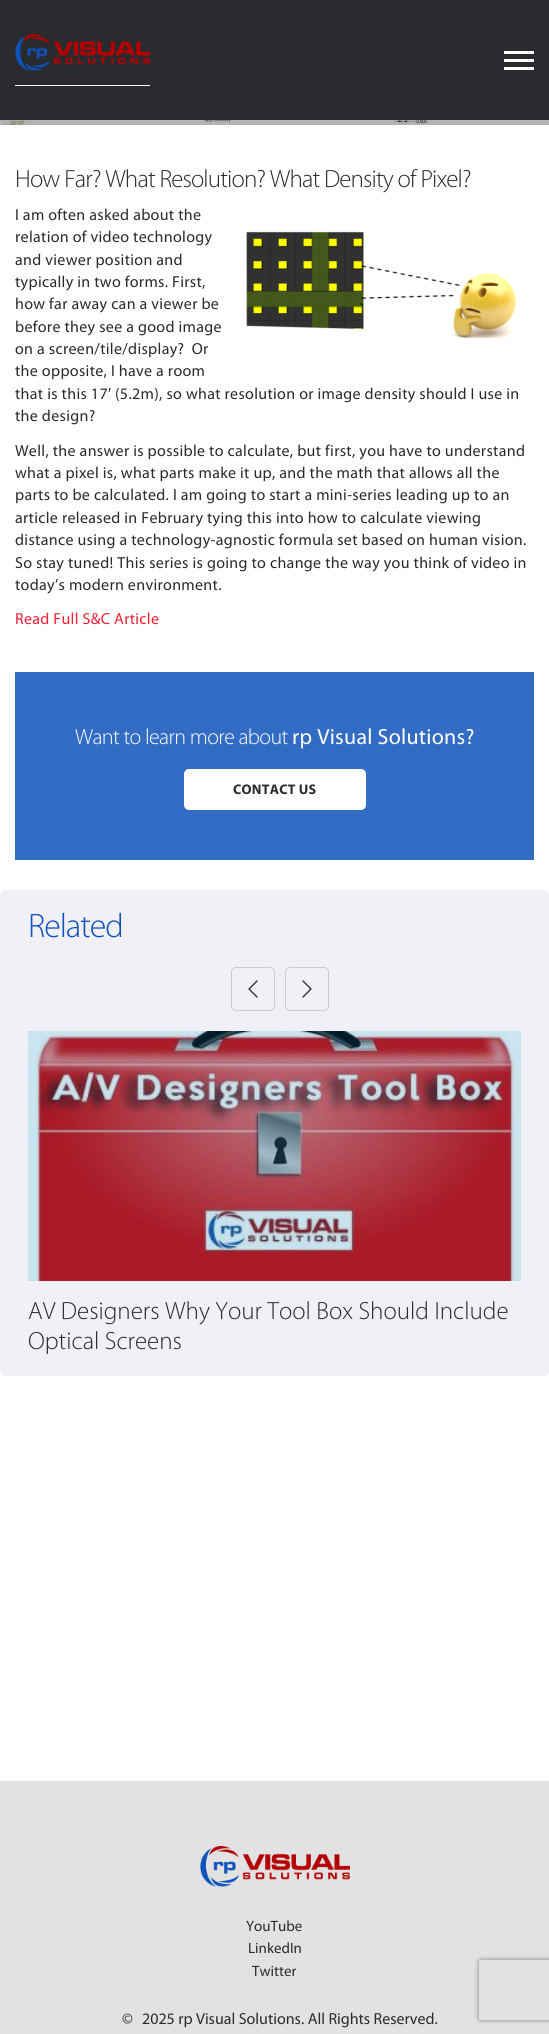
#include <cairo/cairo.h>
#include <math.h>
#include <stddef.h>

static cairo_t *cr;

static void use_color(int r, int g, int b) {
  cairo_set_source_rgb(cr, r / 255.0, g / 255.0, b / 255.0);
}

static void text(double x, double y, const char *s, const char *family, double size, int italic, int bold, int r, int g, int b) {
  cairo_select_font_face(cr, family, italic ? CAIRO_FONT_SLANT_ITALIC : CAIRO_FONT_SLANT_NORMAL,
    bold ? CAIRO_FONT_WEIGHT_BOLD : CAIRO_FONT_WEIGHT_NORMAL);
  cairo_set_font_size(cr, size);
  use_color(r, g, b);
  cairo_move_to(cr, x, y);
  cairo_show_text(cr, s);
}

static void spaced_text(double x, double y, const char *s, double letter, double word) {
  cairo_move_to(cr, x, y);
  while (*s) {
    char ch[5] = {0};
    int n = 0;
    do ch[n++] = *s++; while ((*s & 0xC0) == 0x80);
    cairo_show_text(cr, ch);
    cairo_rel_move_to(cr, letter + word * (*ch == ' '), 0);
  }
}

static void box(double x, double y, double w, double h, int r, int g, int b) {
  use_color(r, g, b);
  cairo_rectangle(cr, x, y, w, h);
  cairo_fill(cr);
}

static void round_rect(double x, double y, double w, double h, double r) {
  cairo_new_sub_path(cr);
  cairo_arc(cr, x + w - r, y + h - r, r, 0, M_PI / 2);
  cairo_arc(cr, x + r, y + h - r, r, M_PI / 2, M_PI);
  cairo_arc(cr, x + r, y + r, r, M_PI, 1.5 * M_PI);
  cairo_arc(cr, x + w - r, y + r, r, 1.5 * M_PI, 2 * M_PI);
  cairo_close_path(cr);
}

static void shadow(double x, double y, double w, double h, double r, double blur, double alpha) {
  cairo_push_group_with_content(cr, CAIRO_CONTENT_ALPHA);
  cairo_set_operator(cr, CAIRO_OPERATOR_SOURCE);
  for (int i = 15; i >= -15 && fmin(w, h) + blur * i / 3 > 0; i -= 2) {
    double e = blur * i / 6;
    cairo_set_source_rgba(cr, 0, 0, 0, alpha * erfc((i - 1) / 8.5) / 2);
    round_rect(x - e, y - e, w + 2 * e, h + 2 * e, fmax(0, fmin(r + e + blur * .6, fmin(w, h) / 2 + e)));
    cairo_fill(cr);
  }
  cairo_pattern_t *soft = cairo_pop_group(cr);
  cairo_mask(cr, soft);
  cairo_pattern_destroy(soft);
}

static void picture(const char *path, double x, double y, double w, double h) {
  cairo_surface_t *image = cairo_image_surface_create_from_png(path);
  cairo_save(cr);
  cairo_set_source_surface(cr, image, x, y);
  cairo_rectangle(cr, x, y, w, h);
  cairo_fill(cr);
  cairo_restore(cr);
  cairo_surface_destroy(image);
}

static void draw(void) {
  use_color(255, 255, 255);
  cairo_paint(cr);
  box(0, 120, 549, 5, 179, 179, 179);
  box(0, 0, 549, 120, 41, 43, 46);
  box(15, 85, 135, 1, 255, 255, 255);
  picture("img_01.png", 15, 34, 135, 37);
  box(504, 51, 30, 3, 255, 255, 255);
  box(504, 59, 30, 3, 255, 255, 255);
  box(504, 67, 30, 3, 255, 255, 255);
  picture("img_02.png", 4, 120, 531, 5);
  picture("img_03.png", 246, 231, 270, 108);
  box(15, 672, 519, 188, 51, 108, 196);
  use_color(255, 255, 255);
  round_rect(184, 769, 182, 41, 5);
  cairo_fill(cr);
  use_color(240, 240, 246);
  round_rect(0, 890, 549, 486, 5);
  cairo_fill(cr);
  box(28, 1031, 493, 250, 192, 218, 234);
  round_rect(231.5, 967.5, 43, 43, 4.5);
  use_color(204, 204, 204);
  cairo_set_line_width(cr, 1);
  cairo_stroke(cr);
  picture("img_04.png", 248, 980, 10, 18);
  round_rect(285.5, 967.5, 43, 43, 4.5);
  cairo_stroke(cr);
  picture("img_05.png", 302, 980, 10, 18);
  picture("img_06.png", 28, 1031, 493, 250);
  box(0, 1781, 549, 253, 226, 226, 226);
  picture("img_07.png", 200, 1846, 150, 41);
  cairo_save(cr);
  cairo_set_fill_rule(cr, CAIRO_FILL_RULE_EVEN_ODD);
  cairo_new_path(cr);
  cairo_move_to(cr, 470, 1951);
  cairo_line_to(cr, 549, 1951);
  cairo_line_to(cr, 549, 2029);
  cairo_line_to(cr, 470, 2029);
  cairo_close_path(cr);
  cairo_move_to(cr, 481, 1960);
  cairo_line_to(cr, 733, 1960);
  cairo_curve_to(cr, 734, 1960, 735, 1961, 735, 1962);
  cairo_line_to(cr, 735, 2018);
  cairo_curve_to(cr, 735, 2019, 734, 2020, 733, 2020);
  cairo_line_to(cr, 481, 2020);
  cairo_curve_to(cr, 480, 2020, 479, 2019, 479, 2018);
  cairo_line_to(cr, 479, 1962);
  cairo_curve_to(cr, 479, 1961, 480, 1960, 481, 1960);
  cairo_close_path(cr);
  cairo_clip(cr);
  use_color(128, 128, 128);
  shadow(479, 1960, 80, 60, 2, 2.5, 1);
  cairo_restore(cr);
  cairo_select_font_face(cr, "Myriad Light", CAIRO_FONT_SLANT_NORMAL, CAIRO_FONT_WEIGHT_NORMAL);
  cairo_set_font_size(cr, 25);
  use_color(41, 43, 46);
  spaced_text(15, 187, "How Far? What Resolution? What Density of Pixel?", -0.85, 0);
  cairo_select_font_face(cr, "Myriad", CAIRO_FONT_SLANT_NORMAL, CAIRO_FONT_WEIGHT_NORMAL);
  cairo_set_font_size(cr, 16);
  spaced_text(15, 220, "I am often asked about the", 0.32, 0);
  spaced_text(15, 242, "relation of video technology", 0.32, 0);
  spaced_text(15, 265, "and viewer position and", 0.32, 0);
  spaced_text(15, 287, "typically in two forms. First,", 0.32, 0);
  spaced_text(15, 309, "how far away can a viewer be", 0.32, 0);
  spaced_text(15, 332, "before they see a good image", 0.32, 0);
  spaced_text(15, 354, "on a screen/tile/display?  Or", 0.32, 0);
  spaced_text(15, 376, "the opposite, I have a room", 0.32, 0);
  spaced_text(15, 399, "that is this 17", 0.32, 0);
  cairo_select_font_face(cr, "Liberation Sans", CAIRO_FONT_SLANT_NORMAL, CAIRO_FONT_WEIGHT_NORMAL);
  spaced_text(108, 399, "′", 0.32, 0);
  cairo_select_font_face(cr, "Myriad", CAIRO_FONT_SLANT_NORMAL, CAIRO_FONT_WEIGHT_NORMAL);
  spaced_text(115, 399, "(5.2m), so what resolution or image density should I use in", 0.32, 0);
  spaced_text(15, 421, "the design?", 0.32, 0);
  spaced_text(15, 456, "Well, the answer is possible to calculate, but first, you have to understand", 0.32, 0);
  spaced_text(15, 478, "what a pixel is, what parts make it up, and the math that allows all the", 0.32, 0);
  spaced_text(15, 500, "parts to be calculated. I am going to start a mini-series leading up to an", 0.32, 0);
  spaced_text(15, 523, "article released in February tying this into how to calculate viewing", 0.32, 0);
  spaced_text(15, 545, "distance using a technology-agnostic formula set based on human vision.", 0.32, 0);
  spaced_text(15, 568, "So stay tuned! This series is going to change the way you think of video in", 0.32, 0);
  spaced_text(15, 590, "today’s modern environment.", 0.32, 0);
  use_color(242, 30, 52);
  spaced_text(15, 624, "Read Full S&C Article", 0.32, 0);
  cairo_select_font_face(cr, "Myriad Light", CAIRO_FONT_SLANT_NORMAL, CAIRO_FONT_WEIGHT_NORMAL);
  cairo_set_font_size(cr, 22);
  use_color(255, 255, 255);
  spaced_text(75, 744, "Want to learn more about", -0.6, 0);
  cairo_select_font_face(cr, "Myriad", CAIRO_FONT_SLANT_NORMAL, CAIRO_FONT_WEIGHT_NORMAL);
  spaced_text(292, 744, "rp Visual Solutions?", 0.25, 0);
  cairo_select_font_face(cr, "Myriad", CAIRO_FONT_SLANT_NORMAL, CAIRO_FONT_WEIGHT_BOLD);
  cairo_set_font_size(cr, 14);
  use_color(41, 43, 46);
  spaced_text(233, 794, "CONTACT US", 0.25, 0);
  cairo_select_font_face(cr, "Myriad Light", CAIRO_FONT_SLANT_NORMAL, CAIRO_FONT_WEIGHT_NORMAL);
  cairo_set_font_size(cr, 34);
  use_color(15, 82, 186);
  spaced_text(28, 937, "Related", -1, 0);
  text(28, 1319, "AV Designers Why Your Tool Box Should Include", "Myriad Light", 25, 0, 0, 41, 43, 46);
  text(28, 1349, "Optical Screens", "Myriad Light", 25, 0, 0, 41, 43, 46);
  text(246, 1931, "YouTube", "Myriad", 15, 0, 0, 41, 43, 46);
  text(248, 1953, "LinkedIn", "Myriad", 15, 0, 0, 41, 43, 46);
  text(252, 1976, "Twitter", "Myriad", 15, 0, 0, 41, 43, 46);
  text(122, 2024, "©", "Myriad", 16, 0, 0, 41, 43, 46);
  text(142, 2024, "2025 rp Visual Solutions. All Rights Reserved.", "Myriad", 16, 0, 0, 41, 43, 46);
}

int main(void) {
  cairo_surface_t *surface = cairo_image_surface_create(CAIRO_FORMAT_RGB24, 549, 2034);
  cr = cairo_create(surface);
  cairo_font_options_t *options = cairo_font_options_create();
  cairo_font_options_set_hint_metrics(options, CAIRO_HINT_METRICS_OFF);
  cairo_font_options_set_hint_style(options, CAIRO_HINT_STYLE_NONE);
  cairo_set_font_options(cr, options);
  cairo_set_miter_limit(cr, 4);
  draw();
  cairo_surface_write_to_png(surface, "out.png");
  cairo_font_options_destroy(options);
  cairo_destroy(cr);
  cairo_surface_destroy(surface);
  return 0;
}
